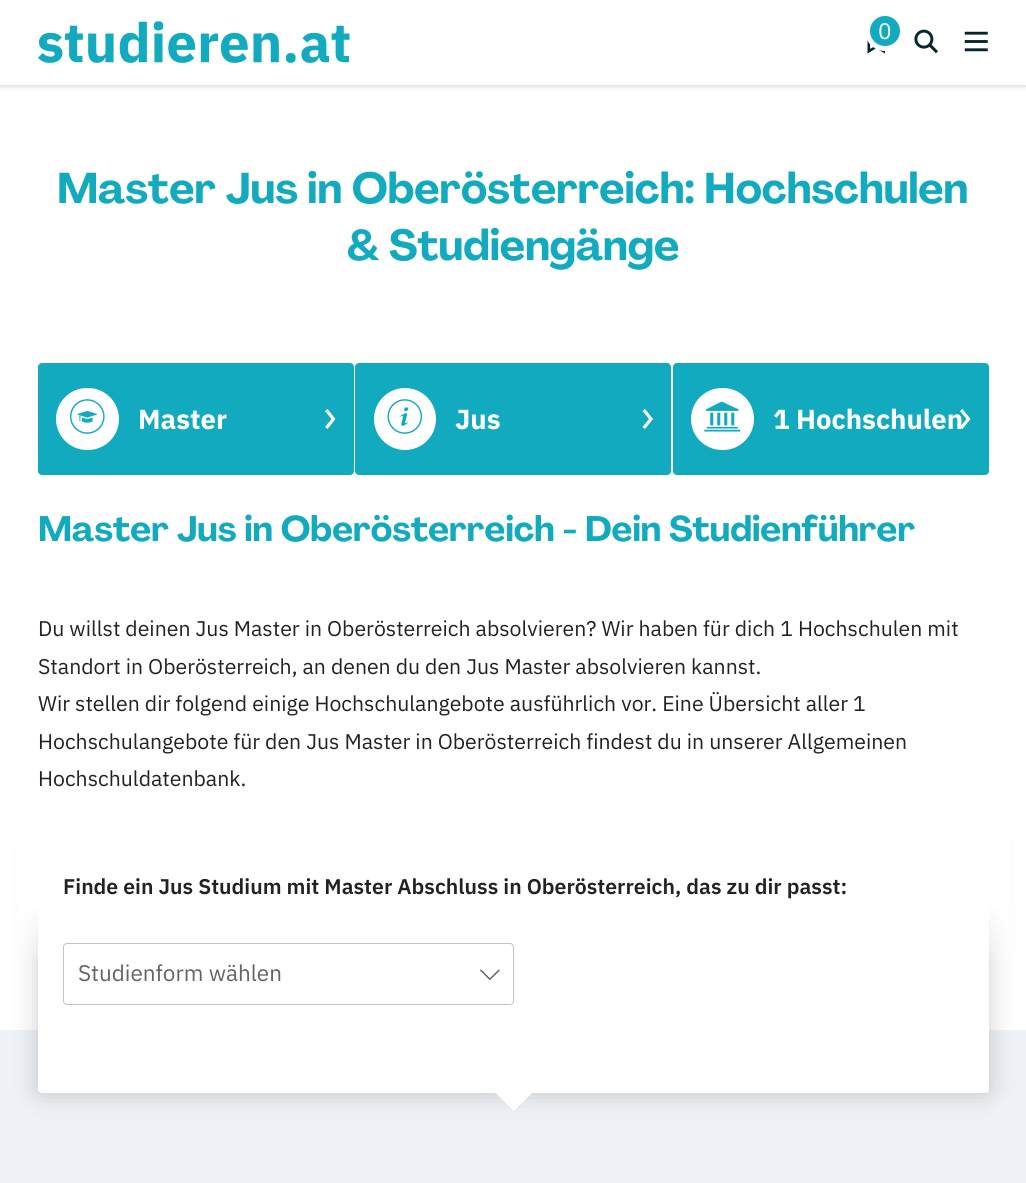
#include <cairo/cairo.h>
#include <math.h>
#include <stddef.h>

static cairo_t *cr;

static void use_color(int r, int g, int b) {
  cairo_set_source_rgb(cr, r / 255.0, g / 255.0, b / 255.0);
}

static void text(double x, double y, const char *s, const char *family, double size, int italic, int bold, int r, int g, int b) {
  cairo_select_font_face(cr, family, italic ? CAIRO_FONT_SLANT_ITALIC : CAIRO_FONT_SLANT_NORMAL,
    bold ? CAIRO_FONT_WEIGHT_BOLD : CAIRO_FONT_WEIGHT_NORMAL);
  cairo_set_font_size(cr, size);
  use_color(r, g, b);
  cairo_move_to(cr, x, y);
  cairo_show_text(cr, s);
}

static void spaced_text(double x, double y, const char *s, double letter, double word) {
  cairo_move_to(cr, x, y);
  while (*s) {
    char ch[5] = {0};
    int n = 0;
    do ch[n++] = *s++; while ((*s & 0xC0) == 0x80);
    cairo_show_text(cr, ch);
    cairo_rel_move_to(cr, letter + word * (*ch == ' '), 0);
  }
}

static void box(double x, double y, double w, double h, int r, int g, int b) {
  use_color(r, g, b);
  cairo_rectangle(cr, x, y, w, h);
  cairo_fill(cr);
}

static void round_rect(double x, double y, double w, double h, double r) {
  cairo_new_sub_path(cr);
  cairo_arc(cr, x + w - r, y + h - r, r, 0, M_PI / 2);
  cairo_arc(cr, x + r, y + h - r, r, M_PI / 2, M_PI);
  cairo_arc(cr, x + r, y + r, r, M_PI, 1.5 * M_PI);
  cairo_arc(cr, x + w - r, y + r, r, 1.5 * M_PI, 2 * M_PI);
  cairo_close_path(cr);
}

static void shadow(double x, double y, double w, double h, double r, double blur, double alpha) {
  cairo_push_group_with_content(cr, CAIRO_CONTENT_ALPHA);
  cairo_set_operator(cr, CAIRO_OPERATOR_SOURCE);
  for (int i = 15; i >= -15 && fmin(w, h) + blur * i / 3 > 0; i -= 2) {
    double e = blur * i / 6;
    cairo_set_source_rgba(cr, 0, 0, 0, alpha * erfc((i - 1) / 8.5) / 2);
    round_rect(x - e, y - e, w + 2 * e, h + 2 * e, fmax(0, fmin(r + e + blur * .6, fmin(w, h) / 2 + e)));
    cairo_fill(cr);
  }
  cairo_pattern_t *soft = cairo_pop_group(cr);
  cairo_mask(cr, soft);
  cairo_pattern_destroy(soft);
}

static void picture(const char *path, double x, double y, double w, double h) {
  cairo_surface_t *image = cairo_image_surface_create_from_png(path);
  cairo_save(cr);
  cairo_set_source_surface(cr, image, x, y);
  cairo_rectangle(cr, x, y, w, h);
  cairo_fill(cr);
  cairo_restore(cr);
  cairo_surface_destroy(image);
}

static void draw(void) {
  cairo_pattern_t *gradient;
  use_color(238, 242, 246);
  cairo_paint(cr);
  box(0, 85, 1026, 945, 255, 255, 255);
  use_color(0, 0, 0);
  shadow(0, 0, 1026, 85, 0, 3, 0.25);
  box(0, 0, 1026, 85, 255, 255, 255);
  picture("img_01.png", 38, 21, 312, 42);
  picture("img_02.png", 867, 39, 18, 15);
  use_color(18, 170, 190);
  cairo_arc(cr, 885, 31, 17.5, 0, 2 * M_PI);
  cairo_fill_preserve(cr);
  use_color(255, 255, 255);
  cairo_set_line_width(cr, 5);
  cairo_stroke(cr);
  picture("img_03.png", 914, 29, 24, 25);
  picture("img_04.png", 964, 31, 24, 21);
  use_color(18, 170, 190);
  round_rect(38, 363, 316, 112, 4);
  cairo_fill(cr);
  use_color(255, 255, 255);
  round_rect(56, 388, 63, 62, 31);
  cairo_fill(cr);
  picture("img_05.png", 70, 399, 35, 35);
  cairo_new_path(cr);
  cairo_move_to(cr, 335.5, 419);
  cairo_line_to(cr, 327.5, 429);
  cairo_line_to(cr, 325, 427);
  cairo_line_to(cr, 331.5, 419);
  cairo_line_to(cr, 325, 411);
  cairo_line_to(cr, 327.5, 409);
  cairo_close_path(cr);
  cairo_fill(cr);
  use_color(18, 170, 190);
  round_rect(355, 363, 316, 112, 4);
  cairo_fill(cr);
  use_color(255, 255, 255);
  cairo_arc(cr, 405, 419, 31, 0, 2 * M_PI);
  cairo_fill(cr);
  picture("img_06.png", 387, 399, 36, 35);
  cairo_new_path(cr);
  cairo_move_to(cr, 653, 419);
  cairo_line_to(cr, 645, 429);
  cairo_line_to(cr, 642.5, 427);
  cairo_line_to(cr, 649, 419);
  cairo_line_to(cr, 642.5, 411);
  cairo_line_to(cr, 645, 409);
  cairo_close_path(cr);
  cairo_fill(cr);
  use_color(18, 170, 190);
  round_rect(673, 363, 316, 112, 4);
  cairo_fill(cr);
  use_color(255, 255, 255);
  round_rect(691, 388, 63, 62, 31);
  cairo_fill(cr);
  picture("img_07.png", 704, 401, 37, 31);
  cairo_new_path(cr);
  cairo_move_to(cr, 970.5, 419);
  cairo_line_to(cr, 962.5, 429);
  cairo_line_to(cr, 960, 427);
  cairo_line_to(cr, 966.5, 419);
  cairo_line_to(cr, 960, 411);
  cairo_line_to(cr, 962.5, 409);
  cairo_close_path(cr);
  cairo_fill(cr);
  use_color(0, 0, 0);
  shadow(38, 843, 951, 250, 4, 12.5, 0.2);
  use_color(255, 255, 255);
  round_rect(38, 843, 951, 250, 4);
  cairo_fill(cr);
  box(17, 822, 993, 83, 255, 255, 255);
  gradient = cairo_pattern_create_linear(513, 968, 513, 905);
  cairo_pattern_add_color_stop_rgba(gradient, 0, 1, 1, 1, 0);
  cairo_pattern_add_color_stop_rgba(gradient, 1, 1, 1, 1, 1);
  cairo_set_source(cr, gradient);
  cairo_pattern_destroy(gradient);
  cairo_rectangle(cr, 18, 905, 991, 56);
  cairo_fill(cr);
  round_rect(63.5, 943.5, 450, 61, 3.5);
  use_color(195, 195, 195);
  cairo_set_line_width(cr, 1);
  cairo_stroke(cr);
  picture("img_08.png", 480, 969, 20, 12);
  use_color(255, 255, 255);
  cairo_new_path(cr);
  cairo_move_to(cr, 495, 1092.5);
  cairo_line_to(cr, 532.5, 1092.5);
  cairo_line_to(cr, 514, 1111);
  cairo_close_path(cr);
  cairo_fill(cr);
  cairo_select_font_face(cr, "IBM Plex Sans", CAIRO_FONT_SLANT_NORMAL, CAIRO_FONT_WEIGHT_NORMAL);
  cairo_set_font_size(cr, 22.5);
  spaced_text(878, 39, "0", -2, 0);
  text(57, 203, "Master Jus in Oberösterreich: Hochschulen", "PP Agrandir", 42.5, 0, 1, 18, 170, 190);
  text(347, 260, "& Studiengänge", "PP Agrandir", 42.5, 0, 1, 18, 170, 190);
  text(138, 429, "Master", "IBM Plex Sans", 27.5, 0, 1, 255, 255, 255);
  text(455, 429, "Jus", "IBM Plex Sans", 27.5, 0, 1, 255, 255, 255);
  text(773, 429, "1 Hochschulen", "IBM Plex Sans", 27.5, 0, 1, 255, 255, 255);
  text(38, 541, "Master Jus in Oberösterreich - Dein Studienführer", "PP Agrandir", 35, 0, 1, 18, 170, 190);
  text(38, 636, "Du willst deinen Jus Master in Oberösterreich absolvieren? Wir haben für dich 1 Hochschulen mit", "IBM Plex Sans", 21.25, 0, 0, 34, 34, 34);
  text(38, 674, "Standort in Oberösterreich, an denen du den Jus Master absolvieren kannst.", "IBM Plex Sans", 21.25, 0, 0, 34, 34, 34);
  text(38, 711, "Wir stellen dir folgend einige Hochschulangebote ausführlich vor. Eine Übersicht aller 1", "IBM Plex Sans", 21.25, 0, 0, 34, 34, 34);
  text(38, 749, "Hochschulangebote für den Jus Master in Oberösterreich findest du in unserer Allgemeinen", "IBM Plex Sans", 21.25, 0, 0, 34, 34, 34);
  text(38, 786, "Hochschuldatenbank.", "IBM Plex Sans", 21.25, 0, 0, 34, 34, 34);
  text(63, 894, "Finde ein Jus Studium mit Master Abschluss in Oberösterreich, das zu dir passt:", "IBM Plex Sans SemiBold", 21.25, 0, 0, 34, 34, 34);
  text(78, 981, "Studienform wählen", "IBM Plex Sans", 22.5, 0, 0, 100, 100, 100);
}

int main(void) {
  cairo_surface_t *surface = cairo_image_surface_create(CAIRO_FORMAT_RGB24, 1026, 1183);
  cr = cairo_create(surface);
  cairo_font_options_t *options = cairo_font_options_create();
  cairo_font_options_set_hint_metrics(options, CAIRO_HINT_METRICS_OFF);
  cairo_font_options_set_hint_style(options, CAIRO_HINT_STYLE_NONE);
  cairo_set_font_options(cr, options);
  cairo_set_miter_limit(cr, 4);
  draw();
  cairo_surface_write_to_png(surface, "out.png");
  cairo_font_options_destroy(options);
  cairo_destroy(cr);
  cairo_surface_destroy(surface);
  return 0;
}
